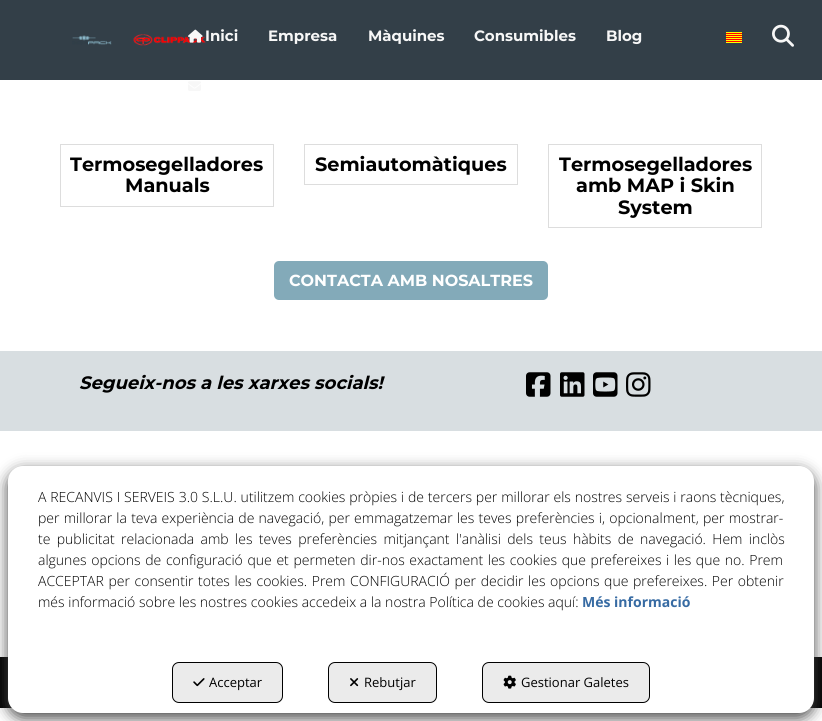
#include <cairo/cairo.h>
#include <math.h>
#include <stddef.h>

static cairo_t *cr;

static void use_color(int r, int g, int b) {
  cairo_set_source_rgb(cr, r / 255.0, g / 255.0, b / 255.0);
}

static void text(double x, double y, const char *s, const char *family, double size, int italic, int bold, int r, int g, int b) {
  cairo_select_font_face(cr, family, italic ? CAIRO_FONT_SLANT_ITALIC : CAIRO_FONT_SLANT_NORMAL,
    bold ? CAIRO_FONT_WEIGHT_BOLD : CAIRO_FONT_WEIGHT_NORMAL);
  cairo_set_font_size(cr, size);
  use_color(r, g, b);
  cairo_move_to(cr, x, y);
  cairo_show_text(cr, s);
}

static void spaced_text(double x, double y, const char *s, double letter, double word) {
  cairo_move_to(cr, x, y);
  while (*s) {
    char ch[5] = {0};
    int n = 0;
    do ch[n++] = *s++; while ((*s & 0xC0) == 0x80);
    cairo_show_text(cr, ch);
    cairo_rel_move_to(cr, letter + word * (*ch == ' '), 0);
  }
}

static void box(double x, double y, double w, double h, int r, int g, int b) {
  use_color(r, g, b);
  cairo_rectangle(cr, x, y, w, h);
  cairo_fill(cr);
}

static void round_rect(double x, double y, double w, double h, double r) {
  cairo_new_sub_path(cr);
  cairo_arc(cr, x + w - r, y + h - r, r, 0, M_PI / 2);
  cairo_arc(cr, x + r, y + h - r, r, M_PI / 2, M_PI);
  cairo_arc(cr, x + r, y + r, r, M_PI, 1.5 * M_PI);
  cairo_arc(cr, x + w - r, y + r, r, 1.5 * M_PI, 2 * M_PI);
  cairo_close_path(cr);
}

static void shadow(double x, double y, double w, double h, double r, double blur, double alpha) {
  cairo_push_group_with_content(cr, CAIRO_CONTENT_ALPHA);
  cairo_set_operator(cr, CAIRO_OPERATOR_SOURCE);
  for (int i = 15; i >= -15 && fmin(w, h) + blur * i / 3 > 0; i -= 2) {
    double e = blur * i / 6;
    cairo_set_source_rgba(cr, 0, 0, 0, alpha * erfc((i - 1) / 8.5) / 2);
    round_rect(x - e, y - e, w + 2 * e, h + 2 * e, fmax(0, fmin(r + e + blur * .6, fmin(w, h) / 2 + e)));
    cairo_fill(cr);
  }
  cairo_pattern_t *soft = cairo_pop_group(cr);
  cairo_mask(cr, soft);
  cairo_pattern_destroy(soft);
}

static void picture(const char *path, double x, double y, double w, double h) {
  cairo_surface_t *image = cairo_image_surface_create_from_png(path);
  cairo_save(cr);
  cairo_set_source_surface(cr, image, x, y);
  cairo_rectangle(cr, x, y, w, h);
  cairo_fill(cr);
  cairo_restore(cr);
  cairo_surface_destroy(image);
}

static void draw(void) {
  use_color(255, 255, 255);
  cairo_paint(cr);
  box(0, 0, 822, 80, 51, 63, 72);
  picture("img_01.png", 72, 35, 40, 10);
  picture("img_02.png", 133, 34, 73, 12);
  picture("img_03.png", 188, 29, 15, 14);
  picture("img_04.png", 188, 81, 13, 10);
  picture("img_05.png", 726, 32, 16, 11);
  picture("img_06.png", 772, 24, 22, 23);
  cairo_rectangle(cr, 60.5, 144.5, 213, 62);
  use_color(221, 221, 221);
  cairo_set_line_width(cr, 1);
  cairo_stroke(cr);
  cairo_rectangle(cr, 304.5, 144.5, 213, 40);
  cairo_stroke(cr);
  cairo_rectangle(cr, 548.5, 144.5, 213, 83);
  cairo_stroke(cr);
  use_color(131, 170, 185);
  round_rect(274, 261, 274, 39, 5);
  cairo_fill(cr);
  box(0, 351, 822, 80, 216, 222, 225);
  picture("img_07.png", 526, 372, 25, 25);
  picture("img_08.png", 560, 372, 25, 25);
  picture("img_09.png", 593, 372, 25, 25);
  picture("img_10.png", 626, 372, 25, 25);
  box(0, 657, 822, 51, 0, 0, 0);
  use_color(69, 69, 69);
  shadow(8, 471, 806, 247, 15, 7.5, 1);
  use_color(255, 255, 255);
  round_rect(8, 466, 806, 247, 15);
  cairo_fill(cr);
  use_color(235, 235, 235);
  round_rect(172.5, 662.5, 110, 40, 6.5);
  cairo_fill_preserve(cr);
  use_color(0, 0, 0);
  cairo_stroke(cr);
  picture("img_11.png", 193, 678, 12, 9);
  use_color(235, 235, 235);
  round_rect(328.5, 662.5, 108, 40, 6.5);
  cairo_fill_preserve(cr);
  use_color(0, 0, 0);
  cairo_stroke(cr);
  picture("img_12.png", 350, 678, 9, 9);
  use_color(235, 235, 235);
  round_rect(482.5, 662.5, 167, 40, 6.5);
  cairo_fill_preserve(cr);
  use_color(0, 0, 0);
  cairo_stroke(cr);
  picture("img_13.png", 503, 675, 13, 14);
  text(205, 41, "Inici", "Montserrat Thin", 15, 0, 0, 247, 247, 247);
  text(268, 41, "Empresa", "Montserrat Thin", 15, 0, 0, 247, 247, 247);
  text(368, 41, "Màquines", "Montserrat Thin", 15, 0, 0, 247, 247, 247);
  text(474, 41, "Consumibles", "Montserrat Thin", 15, 0, 0, 247, 247, 247);
  text(606, 41, "Blog", "Montserrat Thin", 15, 0, 0, 247, 247, 247);
  text(70, 171, "Termosegelladores", "Montserrat Thin", 19.25, 0, 0, 0, 0, 0);
  text(125, 192, "Manuals", "Montserrat Thin", 19.25, 0, 0, 0, 0, 0);
  text(315, 171, "Semiautomàtiques", "Montserrat Thin", 19.25, 0, 0, 0, 0, 0);
  text(559, 171, "Termosegelladores", "Montserrat Thin", 19.25, 0, 0, 0, 0, 0);
  text(576, 192, "amb MAP i Skin", "Montserrat Thin", 19.25, 0, 0, 0, 0, 0);
  text(618, 214, "System", "Montserrat Thin", 19.25, 0, 0, 0, 0, 0);
  text(289, 286, "CONTACTA AMB NOSALTRES", "Montserrat Thin", 16, 0, 0, 255, 255, 255);
  text(79, 389, "Segueix-nos a les xarxes socials!", "Montserrat Thin", 18, 1, 0, 0, 0, 0);
  cairo_select_font_face(cr, "Open Sans Light", CAIRO_FONT_SLANT_NORMAL, CAIRO_FONT_WEIGHT_NORMAL);
  cairo_set_font_size(cr, 14);
  spaced_text(38, 502, "A RECANVIS I SERVEIS 3.0 S.L.U. utilitzem cookies pròpies i de tercers per millorar els nostres serveis i raons tècniques,", 0, 0.25);
  spaced_text(38, 523, "per millorar la teva experiència de navegació, per emmagatzemar les teves preferències i, opcionalment, per mostrar-", 0, 0.6);
  spaced_text(38, 544, "te publicitat relacionada amb les teves preferències mitjançant l'anàlisi dels teus hàbits de navegació. Hem inclòs", 0, 2.75);
  spaced_text(38, 565, "algunes opcions de configuració que et permeten dir-nos exactament les cookies que prefereixes i les que no. Prem", 0, 1);
  spaced_text(38, 586, "ACCEPTAR per consentir totes les cookies. Prem CONFIGURACIÓ per decidir les opcions que prefereixes. Per obtenir", 0, 1);
  text(38, 607, "més informació sobre les nostres cookies accedeix a la nostra Política de cookies aquí:", "Open Sans Light", 14, 0, 0, 0, 0, 0);
  text(582, 607, "Més informació", "Open Sans", 14, 0, 1, 55, 107, 163);
  text(209, 687, "Acceptar", "Open Sans", 13, 0, 0, 0, 0, 0);
  text(364, 687, "Rebutjar", "Open Sans", 13, 0, 0, 0, 0, 0);
  text(521, 687, "Gestionar Galetes", "Open Sans", 13, 0, 0, 0, 0, 0);
}

int main(void) {
  cairo_surface_t *surface = cairo_image_surface_create(CAIRO_FORMAT_RGB24, 822, 721);
  cr = cairo_create(surface);
  cairo_font_options_t *options = cairo_font_options_create();
  cairo_font_options_set_hint_metrics(options, CAIRO_HINT_METRICS_OFF);
  cairo_font_options_set_hint_style(options, CAIRO_HINT_STYLE_NONE);
  cairo_set_font_options(cr, options);
  cairo_set_miter_limit(cr, 4);
  draw();
  cairo_surface_write_to_png(surface, "out.png");
  cairo_font_options_destroy(options);
  cairo_destroy(cr);
  cairo_surface_destroy(surface);
  return 0;
}
